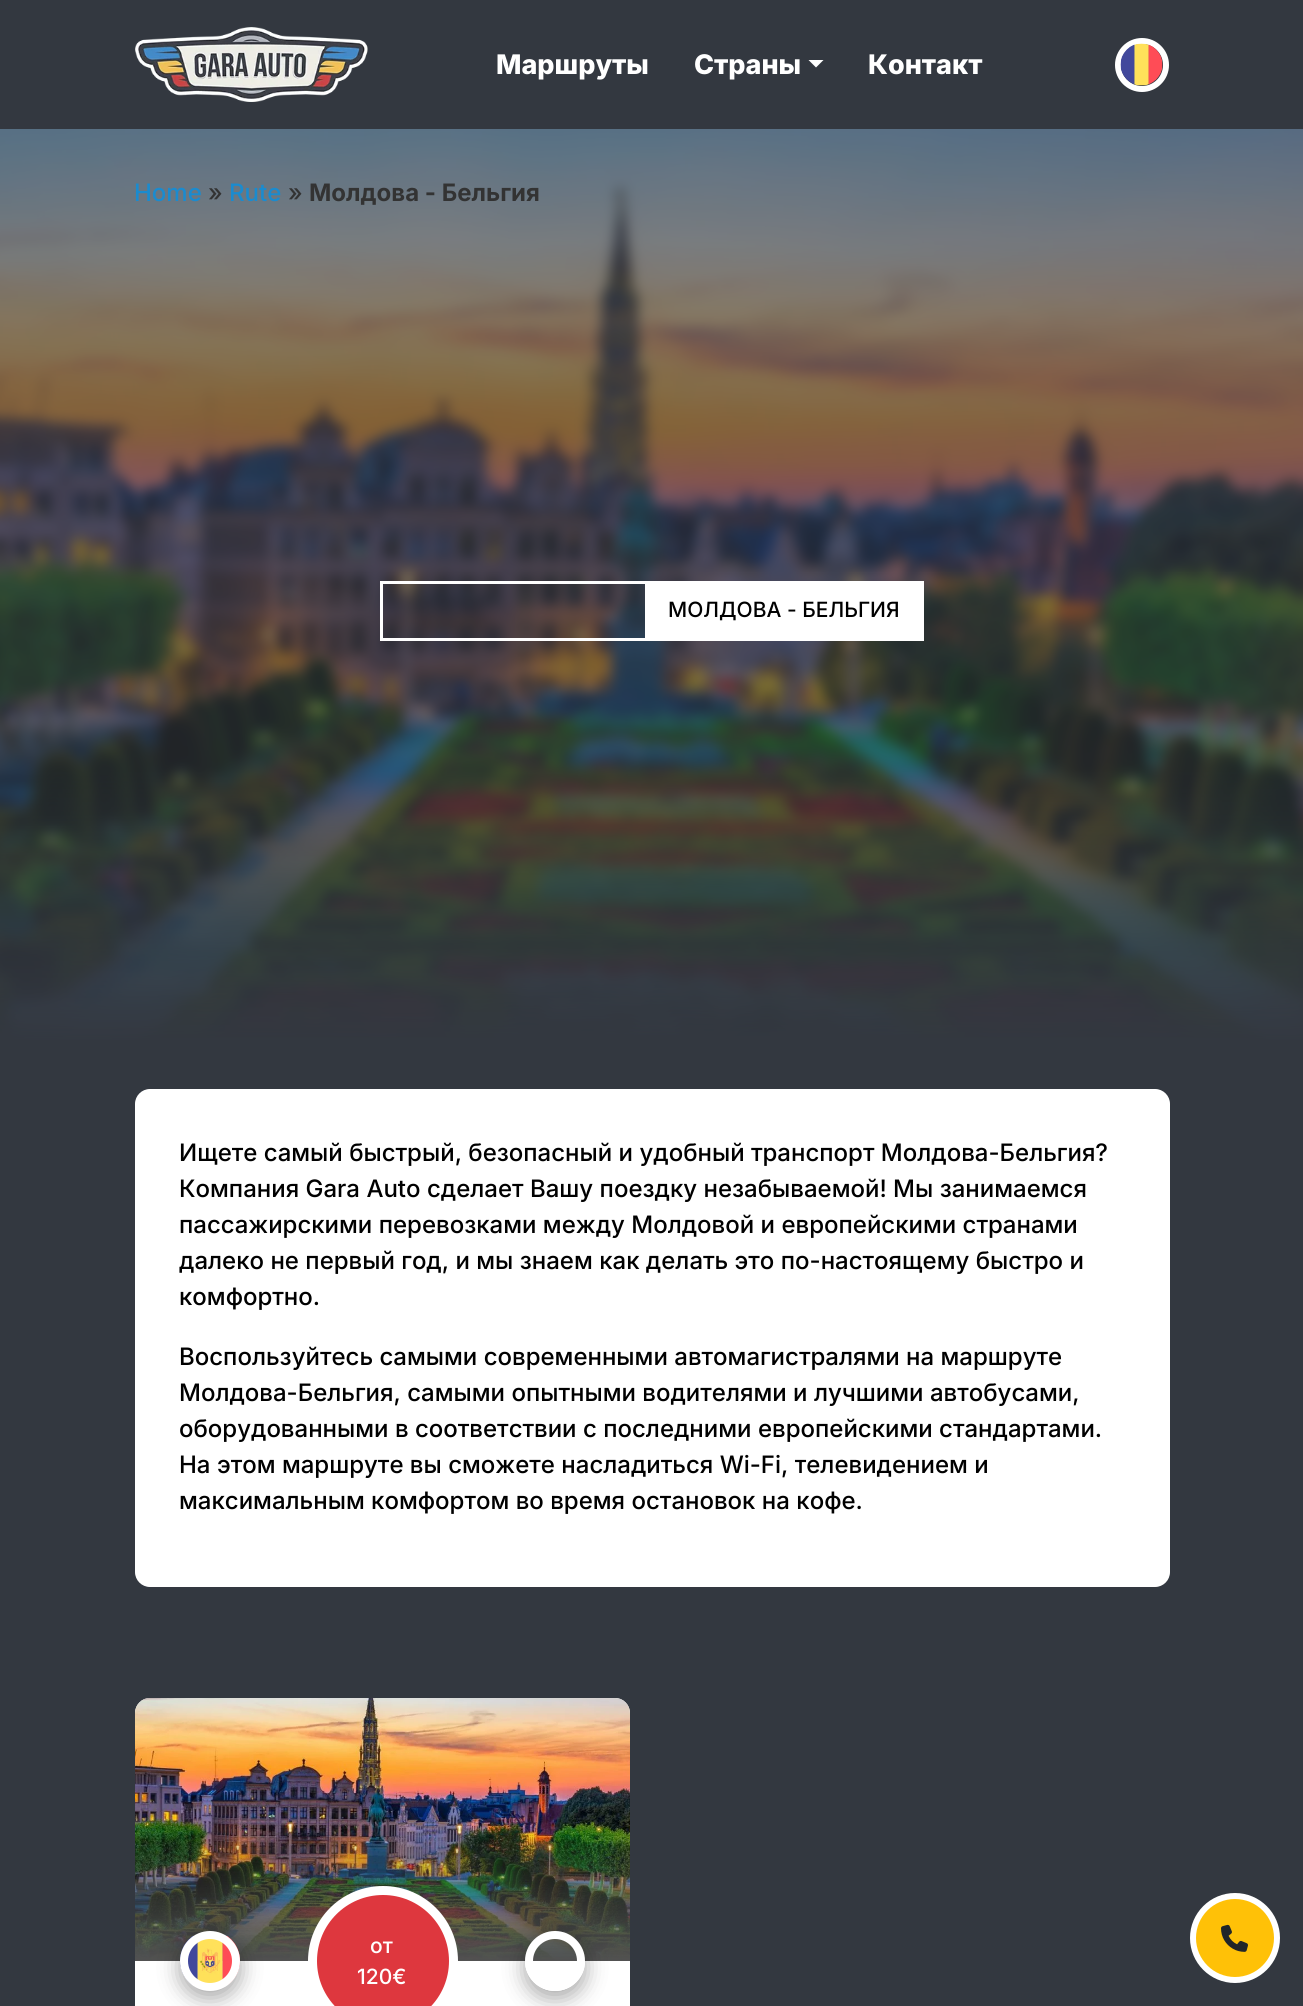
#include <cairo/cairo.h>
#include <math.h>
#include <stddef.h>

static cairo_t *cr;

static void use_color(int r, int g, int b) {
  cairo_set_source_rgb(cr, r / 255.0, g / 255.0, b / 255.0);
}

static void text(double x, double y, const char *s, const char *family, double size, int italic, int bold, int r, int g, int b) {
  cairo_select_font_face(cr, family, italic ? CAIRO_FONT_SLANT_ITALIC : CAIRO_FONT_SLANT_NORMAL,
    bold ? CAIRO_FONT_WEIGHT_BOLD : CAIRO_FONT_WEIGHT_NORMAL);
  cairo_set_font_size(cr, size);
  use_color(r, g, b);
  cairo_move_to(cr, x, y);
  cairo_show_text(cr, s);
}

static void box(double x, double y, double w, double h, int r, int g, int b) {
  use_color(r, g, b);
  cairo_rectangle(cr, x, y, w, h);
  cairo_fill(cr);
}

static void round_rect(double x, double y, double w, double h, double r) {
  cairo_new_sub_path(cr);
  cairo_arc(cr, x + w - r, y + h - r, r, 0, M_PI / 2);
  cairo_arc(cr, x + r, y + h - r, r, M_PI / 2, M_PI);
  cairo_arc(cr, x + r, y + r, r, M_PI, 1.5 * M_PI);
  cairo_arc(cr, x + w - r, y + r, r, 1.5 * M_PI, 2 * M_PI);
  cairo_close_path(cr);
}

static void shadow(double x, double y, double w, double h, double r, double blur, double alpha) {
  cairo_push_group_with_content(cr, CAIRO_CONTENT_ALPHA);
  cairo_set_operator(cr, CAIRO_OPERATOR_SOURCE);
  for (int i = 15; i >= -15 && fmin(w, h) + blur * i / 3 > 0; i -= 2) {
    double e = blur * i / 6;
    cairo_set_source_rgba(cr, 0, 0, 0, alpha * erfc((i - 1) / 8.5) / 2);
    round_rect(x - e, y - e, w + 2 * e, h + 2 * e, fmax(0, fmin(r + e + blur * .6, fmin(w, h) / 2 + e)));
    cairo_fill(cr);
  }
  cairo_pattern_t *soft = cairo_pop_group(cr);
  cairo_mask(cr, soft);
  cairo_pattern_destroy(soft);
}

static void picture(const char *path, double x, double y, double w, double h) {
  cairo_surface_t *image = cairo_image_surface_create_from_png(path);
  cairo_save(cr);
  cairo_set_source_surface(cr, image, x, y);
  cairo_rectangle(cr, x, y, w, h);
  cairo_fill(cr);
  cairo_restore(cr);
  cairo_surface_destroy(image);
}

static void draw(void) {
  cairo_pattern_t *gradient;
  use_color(51, 56, 64);
  cairo_paint(cr);
  picture("img_01.png", 135, 27, 233, 75);
  use_color(255, 255, 255);
  cairo_new_path(cr);
  cairo_move_to(cr, 808.5, 60);
  cairo_line_to(cr, 823.5, 60);
  cairo_line_to(cr, 816, 67.5);
  cairo_close_path(cr);
  cairo_fill(cr);
  cairo_arc(cr, 1142, 65, 24, 0, 2 * M_PI);
  cairo_set_line_width(cr, 6);
  cairo_stroke(cr);
  picture("img_02.png", 1120, 43, 43, 43);
  picture("img_03.png", 0, 129, 1303, 915);
  cairo_rectangle(cr, 381.5, 582.5, 541, 57);
  cairo_set_line_width(cr, 3);
  cairo_stroke(cr);
  box(645, 584, 276, 54, 255, 255, 255);
  round_rect(135, 1089, 1035, 498, 15);
  cairo_fill(cr);
  round_rect(135, 1698, 495, 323, 15);
  cairo_fill(cr);
  picture("img_04.png", 135, 1698, 495, 262);
  gradient = cairo_pattern_create_linear(383, 1829, 383, 1961);
  cairo_pattern_add_color_stop_rgba(gradient, 0, 0.318, 0.318, 0.318, 0);
  cairo_pattern_add_color_stop_rgba(gradient, 1, 0.318, 0.318, 0.318, 1);
  cairo_set_source(cr, gradient);
  cairo_pattern_destroy(gradient);
  cairo_rectangle(cr, 135, 1832, 495, 129);
  cairo_fill(cr);
  use_color(0, 0, 0);
  shadow(180, 1938, 60, 60, 30, 11, 0.35);
  picture("img_05.png", 180, 1935, 60, 51);
  cairo_arc(cr, 210, 1961, 26, 0, 2 * M_PI);
  use_color(255, 255, 255);
  cairo_set_line_width(cr, 8);
  cairo_stroke(cr);
  use_color(222, 55, 62);
  cairo_arc(cr, 383, 1961, 70.5, 0, 2 * M_PI);
  cairo_fill_preserve(cr);
  use_color(255, 255, 255);
  cairo_set_line_width(cr, 9);
  cairo_stroke(cr);
  cairo_save(cr);
  cairo_set_fill_rule(cr, CAIRO_FILL_RULE_EVEN_ODD);
  cairo_new_path(cr);
  cairo_move_to(cr, 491, 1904);
  cairo_line_to(cr, 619, 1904);
  cairo_line_to(cr, 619, 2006);
  cairo_line_to(cr, 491, 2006);
  cairo_close_path(cr);
  cairo_move_to(cr, 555, 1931);
  cairo_curve_to(cr, 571.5, 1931, 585, 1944.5, 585, 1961);
  cairo_curve_to(cr, 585, 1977.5, 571.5, 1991, 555, 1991);
  cairo_curve_to(cr, 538.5, 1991, 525, 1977.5, 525, 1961);
  cairo_curve_to(cr, 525, 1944.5, 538.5, 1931, 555, 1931);
  cairo_close_path(cr);
  cairo_clip(cr);
  use_color(0, 0, 0);
  shadow(525, 1938, 60, 60, 30, 11, 0.35);
  cairo_restore(cr);
  cairo_arc(cr, 555, 1961, 26, 0, 2 * M_PI);
  cairo_set_line_width(cr, 8);
  cairo_stroke(cr);
  use_color(255, 193, 7);
  cairo_arc(cr, 1235, 1938, 42, 0, 2 * M_PI);
  cairo_fill_preserve(cr);
  use_color(255, 255, 255);
  cairo_set_line_width(cr, 6);
  cairo_stroke(cr);
  picture("img_06.png", 1221, 1924, 27, 28);
  text(496, 74, "Mаршруты", "Inter ExtraBold", 27, 0, 0, 255, 255, 255);
  text(694, 74, "Страны", "Inter ExtraBold", 27, 0, 0, 255, 255, 255);
  text(868, 74, "Контакт", "Inter ExtraBold", 27, 0, 0, 255, 255, 255);
  text(134, 201, "Home", "Inter Medium", 24, 0, 0, 26, 139, 207);
  text(208, 201, "»", "Inter Medium", 24, 0, 0, 51, 51, 51);
  text(229, 201, "Rute", "Inter Medium", 24, 0, 0, 26, 139, 207);
  text(288, 201, "»", "Inter Medium", 24, 0, 0, 51, 51, 51);
  text(309, 201, "Молдова - Бельгия", "Inter", 24, 0, 1, 51, 51, 51);
  text(668, 617, "МОЛДОВА - БЕЛЬГИЯ", "Inter Medium", 21, 0, 0, 0, 0, 0);
  text(179, 1161, "Ищете самый быстрый, безопасный и удобный транспорт Молдова-Бельгия?", "Inter Medium", 24, 0, 0, 0, 0, 0);
  text(179, 1197, "Компания Gara Auto сделает Вашу поездку незабываемой! Мы занимаемся", "Inter Medium", 24, 0, 0, 0, 0, 0);
  text(179, 1233, "пассажирскими перевозками между Молдовой и европейскими странами", "Inter Medium", 24, 0, 0, 0, 0, 0);
  text(179, 1269, "далеко не первый год, и мы знаем как делать это по-настоящему быстро и", "Inter Medium", 24, 0, 0, 0, 0, 0);
  text(179, 1305, "комфортно.", "Inter Medium", 24, 0, 0, 0, 0, 0);
  text(179, 1365, "Воспользуйтесь самыми современными автомагистралями на маршруте", "Inter Medium", 24, 0, 0, 0, 0, 0);
  text(179, 1401, "Молдова-Бельгия, самыми опытными водителями и лучшими автобусами,", "Inter Medium", 24, 0, 0, 0, 0, 0);
  text(179, 1437, "оборудованными в соответствии с последними европейскими стандартами.", "Inter Medium", 24, 0, 0, 0, 0, 0);
  text(179, 1473, "На этом маршруте вы сможете насладиться Wi-Fi, телевидением и", "Inter Medium", 24, 0, 0, 0, 0, 0);
  text(179, 1509, "максимальным комфортом во время остановок на кофе.", "Inter Medium", 24, 0, 0, 0, 0, 0);
  text(370, 1953, "от", "Inter Medium", 21, 0, 0, 255, 255, 255);
  text(357, 1984, "120€", "Inter Medium", 21, 0, 0, 255, 255, 255);
}

int main(void) {
  cairo_surface_t *surface = cairo_image_surface_create(CAIRO_FORMAT_RGB24, 1303, 2006);
  cr = cairo_create(surface);
  cairo_font_options_t *options = cairo_font_options_create();
  cairo_font_options_set_hint_metrics(options, CAIRO_HINT_METRICS_OFF);
  cairo_font_options_set_hint_style(options, CAIRO_HINT_STYLE_NONE);
  cairo_set_font_options(cr, options);
  cairo_set_miter_limit(cr, 4);
  draw();
  cairo_surface_write_to_png(surface, "out.png");
  cairo_font_options_destroy(options);
  cairo_destroy(cr);
  cairo_surface_destroy(surface);
  return 0;
}
